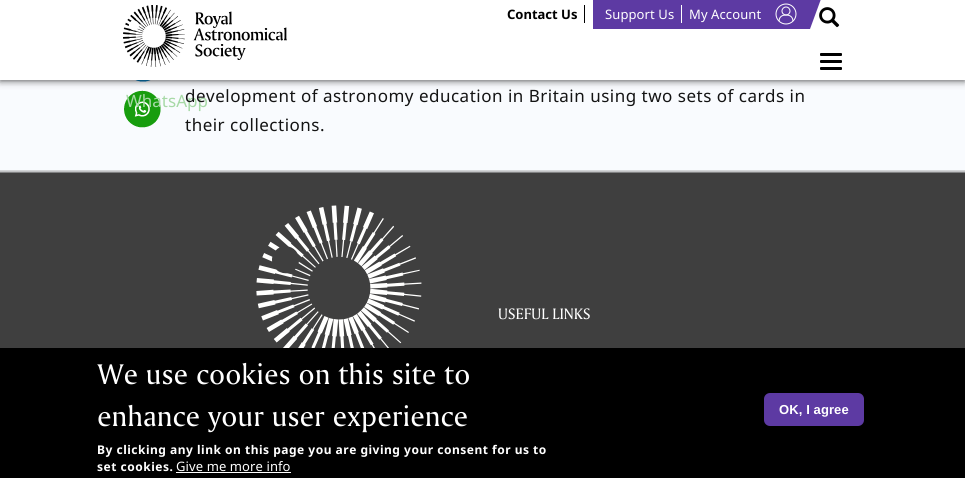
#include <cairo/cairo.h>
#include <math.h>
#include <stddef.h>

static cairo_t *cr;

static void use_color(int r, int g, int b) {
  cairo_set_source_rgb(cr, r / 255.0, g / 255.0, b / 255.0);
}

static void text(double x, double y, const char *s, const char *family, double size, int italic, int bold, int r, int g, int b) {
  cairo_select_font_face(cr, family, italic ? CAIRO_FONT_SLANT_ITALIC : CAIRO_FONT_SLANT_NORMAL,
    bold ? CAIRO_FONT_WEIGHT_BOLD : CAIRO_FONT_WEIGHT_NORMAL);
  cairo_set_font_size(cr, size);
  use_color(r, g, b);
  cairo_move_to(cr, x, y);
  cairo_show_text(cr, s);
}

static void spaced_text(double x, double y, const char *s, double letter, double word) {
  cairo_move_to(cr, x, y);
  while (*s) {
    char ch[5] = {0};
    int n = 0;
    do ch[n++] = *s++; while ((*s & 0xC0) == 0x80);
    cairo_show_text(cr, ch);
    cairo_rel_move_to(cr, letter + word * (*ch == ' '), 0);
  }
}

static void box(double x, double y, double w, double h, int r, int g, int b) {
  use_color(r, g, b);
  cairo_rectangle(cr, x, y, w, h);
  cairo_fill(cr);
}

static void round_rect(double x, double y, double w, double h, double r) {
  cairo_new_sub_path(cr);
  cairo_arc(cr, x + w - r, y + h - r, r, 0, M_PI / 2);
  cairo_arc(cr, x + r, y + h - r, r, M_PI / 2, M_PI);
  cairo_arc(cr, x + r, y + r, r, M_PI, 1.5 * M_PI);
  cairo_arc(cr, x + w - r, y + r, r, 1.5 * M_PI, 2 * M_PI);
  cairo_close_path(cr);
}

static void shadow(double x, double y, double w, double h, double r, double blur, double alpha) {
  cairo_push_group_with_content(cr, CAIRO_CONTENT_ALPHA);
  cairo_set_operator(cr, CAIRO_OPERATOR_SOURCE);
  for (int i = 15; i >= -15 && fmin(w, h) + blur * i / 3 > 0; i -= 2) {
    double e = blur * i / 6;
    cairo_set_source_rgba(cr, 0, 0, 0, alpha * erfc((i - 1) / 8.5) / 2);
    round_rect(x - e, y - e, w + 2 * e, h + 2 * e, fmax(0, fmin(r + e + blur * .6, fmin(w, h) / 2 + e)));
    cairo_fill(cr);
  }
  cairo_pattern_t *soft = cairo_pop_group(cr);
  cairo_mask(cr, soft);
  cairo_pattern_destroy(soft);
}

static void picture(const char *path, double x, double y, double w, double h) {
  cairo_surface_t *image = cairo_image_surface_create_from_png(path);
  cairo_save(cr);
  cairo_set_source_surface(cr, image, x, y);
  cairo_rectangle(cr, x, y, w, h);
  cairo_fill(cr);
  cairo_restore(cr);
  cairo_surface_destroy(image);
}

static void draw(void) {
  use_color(249, 251, 254);
  cairo_paint(cr);
  picture("img_04.png", 135, 80, 16, 2);
  picture("img_05.png", 124, 90, 37, 38);
  use_color(0, 0, 0);
  shadow(0, 0, 965, 80, 0, 4, 0.8);
  box(0, 0, 965, 80, 255, 255, 255);
  picture("img_01.png", 123, 5, 164, 62);
  box(584, 5, 1, 18, 0, 0, 0);
  use_color(93, 58, 163);
  cairo_new_path(cr);
  cairo_move_to(cr, 801, -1);
  cairo_line_to(cr, 821, -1);
  cairo_line_to(cr, 810, 29);
  cairo_line_to(cr, 790, 29);
  cairo_close_path(cr);
  cairo_fill(cr);
  box(593, 0, 208, 29, 93, 58, 163);
  box(681, 5, 1, 18, 255, 255, 255);
  picture("img_02.png", 775, 3, 22, 22);
  picture("img_03.png", 819, 7, 21, 21);
  use_color(0, 0, 0);
  round_rect(820, 53, 22, 3, 1);
  cairo_fill(cr);
  round_rect(820, 60, 22, 3, 1);
  cairo_fill(cr);
  round_rect(820, 67, 22, 3, 1);
  cairo_fill(cr);
  picture("img_06.png", 0, 170, 965, 178);
  picture("img_07.png", 256, 205, 166, 143);
  box(0, 348, 965, 130, 0, 0, 0);
  box(176, 472, 115, 1, 255, 255, 255);
  use_color(93, 58, 163);
  round_rect(764, 393, 100, 33, 6);
  cairo_fill(cr);
  text(507, 19, "Contact Us", "Noto Sans", 13, 0, 1, 0, 0, 0);
  cairo_select_font_face(cr, "Noto Sans", CAIRO_FONT_SLANT_NORMAL, CAIRO_FONT_WEIGHT_NORMAL);
  use_color(255, 255, 255);
  spaced_text(605, 19, "Support Us", 0.1, 0);
  spaced_text(689, 19, "My Account", 0.1, 0);
  text(126, 107, "WhatsApp", "Noto Sans", 17, 0, 0, 167, 217, 166);
  use_color(20, 20, 20);
  spaced_text(185, 102, "development of astronomy education in Britain using two sets of cards in", 0.5, 0);
  spaced_text(185, 131, "their collections.", 0.5, 0);
  text(498, 319, "USEFUL LINKS", "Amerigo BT", 16, 0, 0, 255, 255, 255);
  cairo_set_font_size(cr, 30);
  spaced_text(97, 384, "We use cookies on this site to", 0.1, 0);
  spaced_text(97, 426, "enhance your user experience", 0.1, 0);
  cairo_select_font_face(cr, "Noto Sans", CAIRO_FONT_SLANT_NORMAL, CAIRO_FONT_WEIGHT_BOLD);
  cairo_set_font_size(cr, 12);
  spaced_text(97, 454, "By clicking any link on this page you are giving your consent for us to", 0.5, 0);
  spaced_text(97, 471, "set cookies.", 0.5, 0);
  cairo_select_font_face(cr, "Noto Sans", CAIRO_FONT_SLANT_NORMAL, CAIRO_FONT_WEIGHT_NORMAL);
  cairo_set_font_size(cr, 13);
  spaced_text(176, 471, "Give me more info", 0.1, 0);
  cairo_select_font_face(cr, "Liberation Sans", CAIRO_FONT_SLANT_NORMAL, CAIRO_FONT_WEIGHT_BOLD);
  spaced_text(779, 414, "OK, I agree", 0.1, 0);
}

int main(void) {
  cairo_surface_t *surface = cairo_image_surface_create(CAIRO_FORMAT_RGB24, 965, 478);
  cr = cairo_create(surface);
  cairo_font_options_t *options = cairo_font_options_create();
  cairo_font_options_set_hint_metrics(options, CAIRO_HINT_METRICS_OFF);
  cairo_font_options_set_hint_style(options, CAIRO_HINT_STYLE_NONE);
  cairo_set_font_options(cr, options);
  cairo_set_miter_limit(cr, 4);
  draw();
  cairo_surface_write_to_png(surface, "out.png");
  cairo_font_options_destroy(options);
  cairo_destroy(cr);
  cairo_surface_destroy(surface);
  return 0;
}
